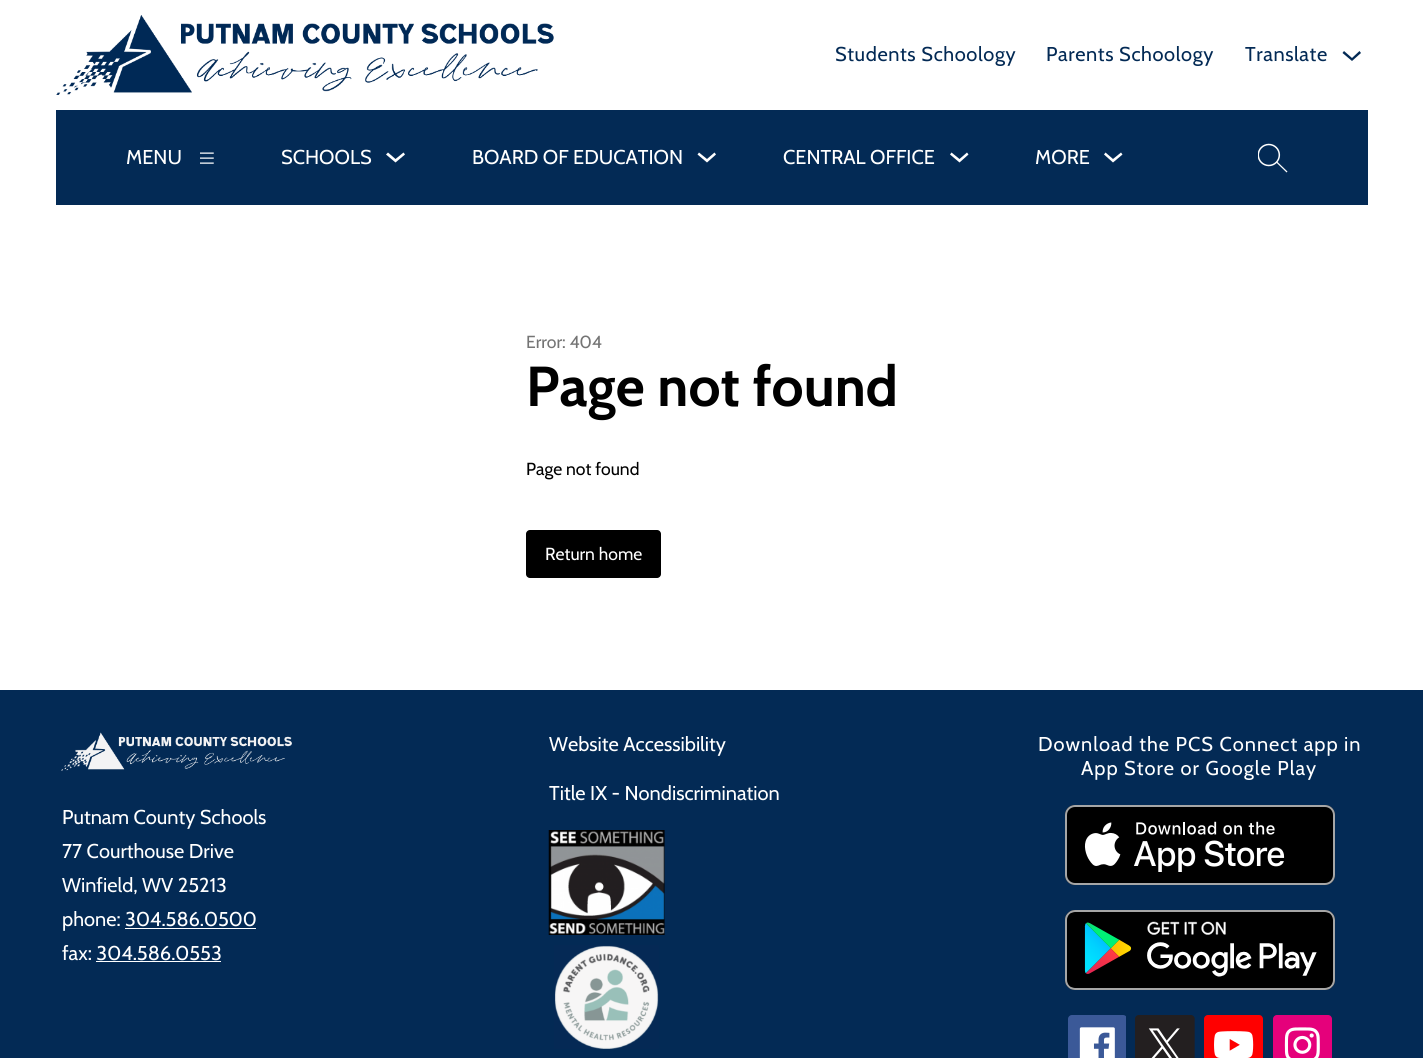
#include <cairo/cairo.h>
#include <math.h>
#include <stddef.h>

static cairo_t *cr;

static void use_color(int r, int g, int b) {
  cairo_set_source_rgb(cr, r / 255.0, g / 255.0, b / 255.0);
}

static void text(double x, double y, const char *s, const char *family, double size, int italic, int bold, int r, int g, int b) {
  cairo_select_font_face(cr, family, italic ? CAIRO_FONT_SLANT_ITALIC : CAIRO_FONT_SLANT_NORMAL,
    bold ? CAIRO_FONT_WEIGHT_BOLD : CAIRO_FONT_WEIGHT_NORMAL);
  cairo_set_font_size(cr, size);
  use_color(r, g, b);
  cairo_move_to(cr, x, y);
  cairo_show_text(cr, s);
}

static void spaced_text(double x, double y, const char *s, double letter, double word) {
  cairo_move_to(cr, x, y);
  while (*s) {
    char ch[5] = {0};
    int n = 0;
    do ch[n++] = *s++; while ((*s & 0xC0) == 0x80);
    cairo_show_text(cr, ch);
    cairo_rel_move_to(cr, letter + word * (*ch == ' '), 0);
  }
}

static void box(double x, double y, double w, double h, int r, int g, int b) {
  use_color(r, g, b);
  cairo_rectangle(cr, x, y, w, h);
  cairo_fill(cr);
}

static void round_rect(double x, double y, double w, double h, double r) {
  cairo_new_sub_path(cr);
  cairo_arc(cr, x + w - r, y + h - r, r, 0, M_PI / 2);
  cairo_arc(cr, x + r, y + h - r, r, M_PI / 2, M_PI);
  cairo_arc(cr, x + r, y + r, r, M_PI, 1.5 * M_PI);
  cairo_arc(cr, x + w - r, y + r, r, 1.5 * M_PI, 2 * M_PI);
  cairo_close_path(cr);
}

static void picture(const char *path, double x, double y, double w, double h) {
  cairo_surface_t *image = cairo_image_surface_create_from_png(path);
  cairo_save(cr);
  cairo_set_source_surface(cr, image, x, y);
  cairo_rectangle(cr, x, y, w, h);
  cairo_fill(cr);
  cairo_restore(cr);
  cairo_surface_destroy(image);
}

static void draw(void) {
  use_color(255, 255, 255);
  cairo_paint(cr);
  picture("img_01.png", 56, 15, 498, 80);
  use_color(3, 42, 85);
  cairo_set_fill_rule(cr, CAIRO_FILL_RULE_EVEN_ODD);
  cairo_new_path(cr);
  cairo_move_to(cr, 1359.5, 51);
  cairo_line_to(cr, 1352, 58);
  cairo_line_to(cr, 1344, 51);
  cairo_line_to(cr, 1342.5, 53);
  cairo_line_to(cr, 1352, 61);
  cairo_line_to(cr, 1361, 53);
  cairo_close_path(cr);
  cairo_fill(cr);
  box(56, 110, 1312, 95, 3, 42, 85);
  picture("img_02.png", 200, 152, 14, 12);
  use_color(255, 255, 255);
  cairo_new_path(cr);
  cairo_move_to(cr, 403.5, 152.5);
  cairo_line_to(cr, 395.5, 159);
  cairo_line_to(cr, 388, 152.5);
  cairo_line_to(cr, 386, 154.5);
  cairo_line_to(cr, 395.5, 162.5);
  cairo_line_to(cr, 405, 154.5);
  cairo_close_path(cr);
  cairo_fill(cr);
  cairo_new_path(cr);
  cairo_move_to(cr, 714.5, 152.5);
  cairo_line_to(cr, 707, 159);
  cairo_line_to(cr, 699, 152.5);
  cairo_line_to(cr, 697.5, 154.5);
  cairo_line_to(cr, 707, 162.5);
  cairo_line_to(cr, 716, 154.5);
  cairo_close_path(cr);
  cairo_fill(cr);
  cairo_new_path(cr);
  cairo_move_to(cr, 967, 152.5);
  cairo_line_to(cr, 959.5, 159);
  cairo_line_to(cr, 951.5, 152.5);
  cairo_line_to(cr, 950, 154.5);
  cairo_line_to(cr, 959.5, 162.5);
  cairo_line_to(cr, 968.5, 154.5);
  cairo_close_path(cr);
  cairo_fill(cr);
  cairo_new_path(cr);
  cairo_move_to(cr, 1121, 152.5);
  cairo_line_to(cr, 1113, 159);
  cairo_line_to(cr, 1105.5, 152.5);
  cairo_line_to(cr, 1104, 154.5);
  cairo_line_to(cr, 1113, 162.5);
  cairo_line_to(cr, 1122.5, 154.5);
  cairo_close_path(cr);
  cairo_fill(cr);
  picture("img_03.png", 1258, 143, 30, 30);
  use_color(0, 0, 0);
  round_rect(526, 530, 135, 48, 4);
  cairo_fill(cr);
  box(0, 690, 1423, 368, 3, 42, 85);
  picture("img_04.png", 548, 830, 117, 105);
  picture("img_05.png", 554, 945, 105, 104);
  picture("img_06.png", 1065, 805, 270, 80);
  picture("img_07.png", 1065, 910, 270, 80);
  picture("img_08.png", 1068, 1015, 58, 43);
  picture("img_09.png", 1135, 1015, 60, 43);
  picture("img_10.png", 1204, 1015, 59, 43);
  picture("img_11.png", 1273, 1015, 59, 43);
  picture("img_12.png", 61, 732, 231, 39);
  box(125, 928, 131, 1, 255, 255, 255);
  box(96, 961, 125, 1, 255, 255, 255);
  cairo_select_font_face(cr, "Cabin", CAIRO_FONT_SLANT_NORMAL, CAIRO_FONT_WEIGHT_NORMAL);
  cairo_set_font_size(cr, 20);
  use_color(3, 42, 85);
  spaced_text(835, 61, "Students Schoology", 0.6, 0);
  spaced_text(1046, 61, "Parents Schoology", 0.6, 0);
  spaced_text(1245, 61, "Translate", 0.6, 0);
  text(126, 164, "MENU", "Cabin", 20, 0, 0, 255, 255, 255);
  text(281, 164, "SCHOOLS", "Cabin", 20, 0, 0, 255, 255, 255);
  text(472, 164, "BOARD OF EDUCATION", "Cabin", 20, 0, 0, 255, 255, 255);
  text(783, 164, "CENTRAL OFFICE", "Cabin", 20, 0, 0, 255, 255, 255);
  text(1035, 164, "MORE", "Cabin", 20, 0, 0, 255, 255, 255);
  text(526, 348, "Error: 404", "Cabin", 17.5, 0, 0, 116, 116, 116);
  text(526, 406, "Page not found", "Cabin", 56.25, 0, 1, 0, 0, 0);
  text(526, 475, "Page not found", "Cabin", 17.5, 0, 0, 0, 0, 0);
  text(545, 560, "Return home", "Cabin", 17.5, 0, 0, 255, 255, 255);
  text(549, 751, "Website Accessibility", "Cabin", 20, 0, 0, 255, 255, 255);
  text(549, 800, "Title IX - Nondiscrimination", "Cabin", 20, 0, 0, 255, 255, 255);
  spaced_text(1038, 751, "Download the PCS Connect app in", 1, 0);
  spaced_text(1081, 775, "App Store or Google Play", 1, 0);
  text(62, 824, "Putnam County Schools", "Cabin", 20, 0, 0, 255, 255, 255);
  text(62, 858, "77 Courthouse Drive", "Cabin", 20, 0, 0, 255, 255, 255);
  text(62, 892, "Winfield, WV 25213", "Cabin", 20, 0, 0, 255, 255, 255);
  text(62, 926, "phone: 304.586.0500", "Cabin", 20, 0, 0, 255, 255, 255);
  text(62, 960, "fax: 304.586.0553", "Cabin", 20, 0, 0, 255, 255, 255);
}

int main(void) {
  cairo_surface_t *surface = cairo_image_surface_create(CAIRO_FORMAT_RGB24, 1423, 1058);
  cr = cairo_create(surface);
  cairo_font_options_t *options = cairo_font_options_create();
  cairo_font_options_set_hint_metrics(options, CAIRO_HINT_METRICS_OFF);
  cairo_font_options_set_hint_style(options, CAIRO_HINT_STYLE_NONE);
  cairo_set_font_options(cr, options);
  cairo_set_miter_limit(cr, 4);
  draw();
  cairo_surface_write_to_png(surface, "out.png");
  cairo_font_options_destroy(options);
  cairo_destroy(cr);
  cairo_surface_destroy(surface);
  return 0;
}
